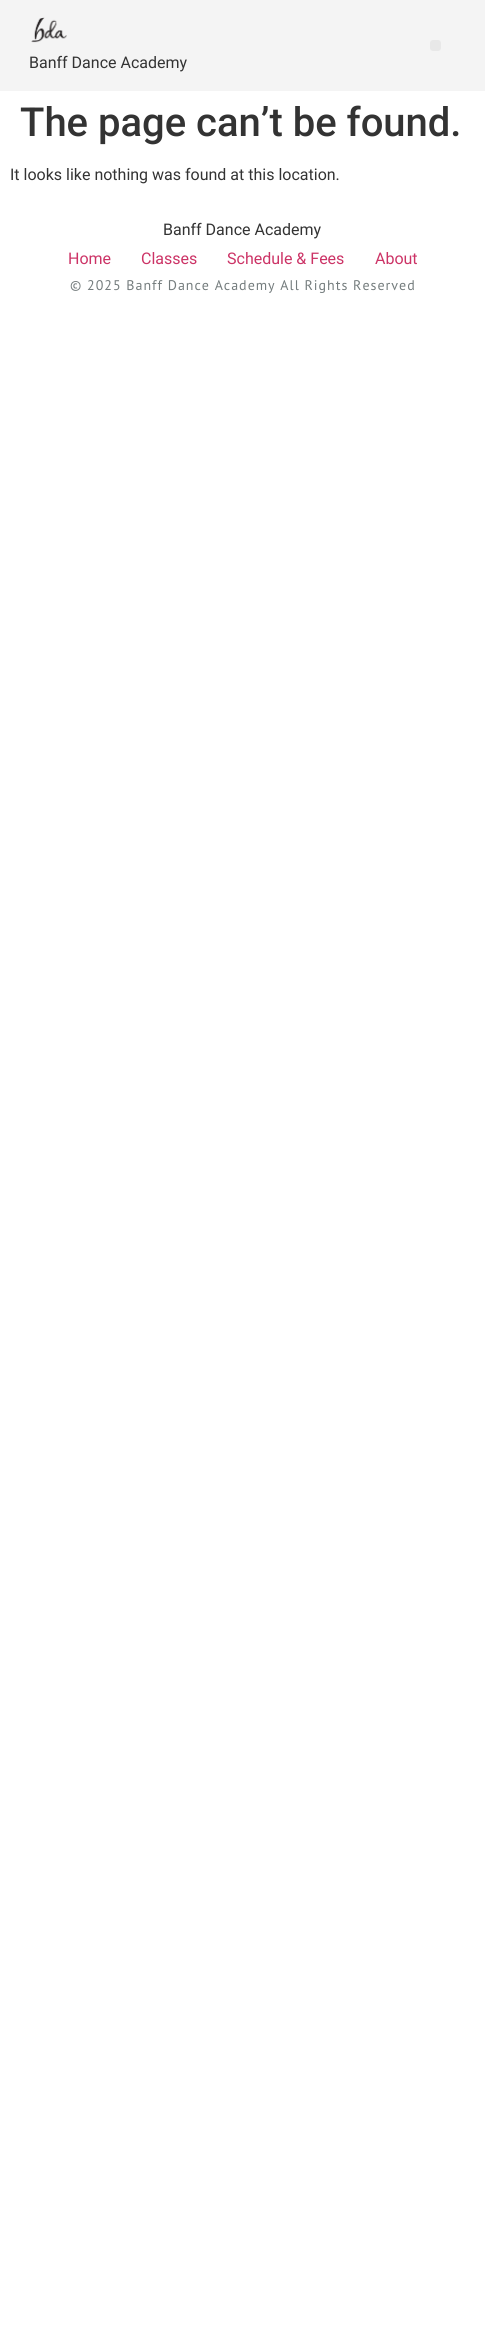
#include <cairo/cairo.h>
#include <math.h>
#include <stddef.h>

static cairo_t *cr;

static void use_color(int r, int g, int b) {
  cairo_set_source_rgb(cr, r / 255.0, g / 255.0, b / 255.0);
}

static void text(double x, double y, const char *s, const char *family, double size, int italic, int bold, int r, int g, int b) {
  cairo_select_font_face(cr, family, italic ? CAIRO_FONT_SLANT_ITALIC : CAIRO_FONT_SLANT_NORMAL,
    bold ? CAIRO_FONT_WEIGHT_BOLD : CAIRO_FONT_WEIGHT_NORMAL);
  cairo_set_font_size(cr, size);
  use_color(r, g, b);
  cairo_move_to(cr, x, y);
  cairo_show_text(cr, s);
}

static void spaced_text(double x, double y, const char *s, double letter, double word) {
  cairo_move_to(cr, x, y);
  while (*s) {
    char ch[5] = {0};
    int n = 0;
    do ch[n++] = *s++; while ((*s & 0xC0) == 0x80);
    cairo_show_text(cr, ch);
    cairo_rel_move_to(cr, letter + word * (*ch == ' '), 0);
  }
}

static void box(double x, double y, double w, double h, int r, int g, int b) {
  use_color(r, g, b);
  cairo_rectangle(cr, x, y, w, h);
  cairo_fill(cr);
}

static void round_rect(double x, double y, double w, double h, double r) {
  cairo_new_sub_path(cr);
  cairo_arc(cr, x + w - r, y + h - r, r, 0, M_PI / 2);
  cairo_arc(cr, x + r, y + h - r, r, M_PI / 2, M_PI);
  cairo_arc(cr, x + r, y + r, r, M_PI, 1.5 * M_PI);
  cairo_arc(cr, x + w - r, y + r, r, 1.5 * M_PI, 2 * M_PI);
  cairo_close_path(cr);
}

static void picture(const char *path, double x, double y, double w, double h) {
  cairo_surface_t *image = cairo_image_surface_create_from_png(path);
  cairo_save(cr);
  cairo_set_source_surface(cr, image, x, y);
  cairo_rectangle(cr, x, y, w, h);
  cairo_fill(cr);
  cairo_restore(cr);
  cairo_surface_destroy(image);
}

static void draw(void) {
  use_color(255, 255, 255);
  cairo_paint(cr);
  box(0, 0, 485, 91, 244, 244, 244);
  use_color(232, 232, 232);
  round_rect(430, 40, 11, 11, 3);
  cairo_fill(cr);
  picture("img_01.png", 31, 17, 36, 26);
  text(29, 68, "Banff Dance Academy", "Roboto", 16, 0, 0, 51, 51, 51);
  text(20, 136, "The page can’t be found.", "Roboto Medium", 40, 0, 0, 51, 51, 51);
  text(10, 180, "It looks like nothing was found at this location.", "Roboto", 16, 0, 0, 51, 51, 51);
  text(163, 235, "Banff Dance Academy", "Roboto", 16, 0, 0, 51, 51, 51);
  text(68, 264, "Home", "Roboto", 16, 0, 0, 204, 51, 102);
  text(141, 264, "Classes", "Roboto", 16, 0, 0, 204, 51, 102);
  text(227, 264, "Schedule & Fees", "Roboto", 16, 0, 0, 204, 51, 102);
  text(375, 264, "About", "Roboto", 16, 0, 0, 204, 51, 102);
  cairo_select_font_face(cr, "PT Sans", CAIRO_FONT_SLANT_NORMAL, CAIRO_FONT_WEIGHT_NORMAL);
  cairo_set_font_size(cr, 14);
  use_color(116, 124, 125);
  spaced_text(70, 290, "© 2025 Banff Dance Academy All Rights Reserved", 1, 0);
}

int main(void) {
  cairo_surface_t *surface = cairo_image_surface_create(CAIRO_FORMAT_RGB24, 485, 2343);
  cr = cairo_create(surface);
  cairo_font_options_t *options = cairo_font_options_create();
  cairo_font_options_set_hint_metrics(options, CAIRO_HINT_METRICS_OFF);
  cairo_font_options_set_hint_style(options, CAIRO_HINT_STYLE_NONE);
  cairo_set_font_options(cr, options);
  cairo_set_miter_limit(cr, 4);
  draw();
  cairo_surface_write_to_png(surface, "out.png");
  cairo_font_options_destroy(options);
  cairo_destroy(cr);
  cairo_surface_destroy(surface);
  return 0;
}
